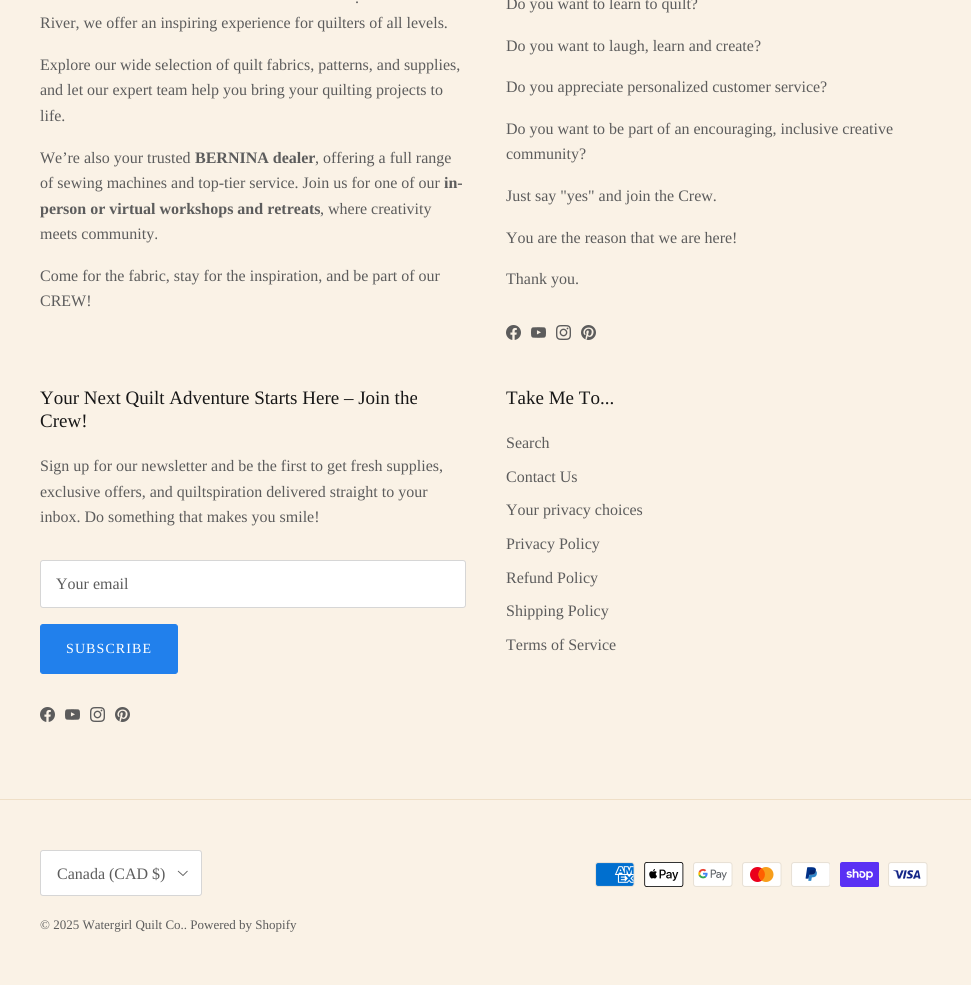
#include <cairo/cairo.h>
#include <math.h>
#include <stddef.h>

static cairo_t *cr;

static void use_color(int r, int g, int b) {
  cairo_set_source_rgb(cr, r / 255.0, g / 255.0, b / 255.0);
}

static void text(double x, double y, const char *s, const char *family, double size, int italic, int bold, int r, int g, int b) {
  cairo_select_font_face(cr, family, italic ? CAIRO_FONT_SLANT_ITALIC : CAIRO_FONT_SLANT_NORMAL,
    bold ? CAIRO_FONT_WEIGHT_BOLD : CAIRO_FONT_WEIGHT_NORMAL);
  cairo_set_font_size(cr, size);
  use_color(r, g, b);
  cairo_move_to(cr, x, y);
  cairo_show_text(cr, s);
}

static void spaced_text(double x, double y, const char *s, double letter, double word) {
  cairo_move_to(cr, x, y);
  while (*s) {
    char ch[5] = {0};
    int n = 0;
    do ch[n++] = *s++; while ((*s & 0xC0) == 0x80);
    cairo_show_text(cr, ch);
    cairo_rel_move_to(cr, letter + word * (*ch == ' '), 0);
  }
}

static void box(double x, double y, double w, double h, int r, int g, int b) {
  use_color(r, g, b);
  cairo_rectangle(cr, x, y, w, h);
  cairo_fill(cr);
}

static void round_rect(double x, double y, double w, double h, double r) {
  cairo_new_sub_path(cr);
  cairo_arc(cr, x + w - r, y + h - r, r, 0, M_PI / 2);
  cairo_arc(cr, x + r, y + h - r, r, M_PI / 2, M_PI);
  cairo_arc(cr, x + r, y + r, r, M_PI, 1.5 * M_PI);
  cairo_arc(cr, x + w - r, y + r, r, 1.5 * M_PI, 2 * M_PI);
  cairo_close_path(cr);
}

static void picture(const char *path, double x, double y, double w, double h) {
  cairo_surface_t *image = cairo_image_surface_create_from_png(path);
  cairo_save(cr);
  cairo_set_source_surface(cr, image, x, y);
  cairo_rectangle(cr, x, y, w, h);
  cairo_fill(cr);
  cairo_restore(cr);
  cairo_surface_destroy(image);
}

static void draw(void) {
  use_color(250, 242, 230);
  cairo_paint(cr);
  picture("img_01.png", 506, 325, 15, 15);
  picture("img_02.png", 531, 327, 15, 11);
  picture("img_03.png", 556, 325, 15, 15);
  picture("img_04.png", 581, 325, 15, 15);
  use_color(255, 255, 255);
  round_rect(40.5, 560.5, 425, 47, 2.5);
  cairo_fill_preserve(cr);
  use_color(214, 214, 214);
  cairo_set_line_width(cr, 1);
  cairo_stroke(cr);
  use_color(33, 128, 236);
  round_rect(40.5, 624.5, 137, 49, 2.5);
  cairo_fill_preserve(cr);
  cairo_stroke(cr);
  picture("img_01.png", 40, 707, 15, 15);
  picture("img_02.png", 65, 709, 15, 11);
  picture("img_03.png", 90, 707, 15, 15);
  picture("img_04.png", 115, 707, 15, 15);
  box(0, 799, 971, 1, 239, 223, 199);
  use_color(255, 255, 255);
  round_rect(40.5, 850.5, 161, 45, 2.5);
  cairo_fill_preserve(cr);
  use_color(214, 214, 214);
  cairo_stroke(cr);
  cairo_new_path(cr);
  cairo_move_to(cr, 187.5, 871);
  cairo_line_to(cr, 183, 875.5);
  cairo_line_to(cr, 178, 871);
  use_color(92, 92, 92);
  cairo_set_line_width(cr, 0.9);
  cairo_stroke(cr);
  picture("img_05.png", 595, 862, 40, 25);
  picture("img_06.png", 644, 862, 40, 25);
  picture("img_07.png", 693, 862, 40, 25);
  picture("img_08.png", 742, 862, 40, 25);
  picture("img_09.png", 791, 862, 39, 25);
  picture("img_10.png", 840, 862, 39, 25);
  picture("img_11.png", 888, 862, 40, 25);
  text(355, 3, ".", "Liberation Serif", 16, 0, 0, 92, 92, 92);
  text(40, 28, "River, we offer an inspiring experience for quilters of all levels.", "Liberation Serif", 16, 0, 0, 92, 92, 92);
  text(40, 70, "Explore our wide selection of quilt fabrics, patterns, and supplies,", "Liberation Serif", 16, 0, 0, 92, 92, 92);
  text(40, 95, "and let our expert team help you bring your quilting projects to", "Liberation Serif", 16, 0, 0, 92, 92, 92);
  text(40, 121, "life.", "Liberation Serif", 16, 0, 0, 92, 92, 92);
  text(40, 163, "We’re also your trusted", "Liberation Serif", 16, 0, 0, 92, 92, 92);
  text(195, 163, "BERNINA dealer", "Liberation Serif", 16, 0, 1, 92, 92, 92);
  text(315, 163, ", offering a full range", "Liberation Serif", 16, 0, 0, 92, 92, 92);
  text(40, 188, "of sewing machines and top-tier service. Join us for one of our", "Liberation Serif", 16, 0, 0, 92, 92, 92);
  text(444, 188, "in-", "Liberation Serif", 16, 0, 1, 92, 92, 92);
  text(40, 214, "person or virtual workshops and retreats", "Liberation Serif", 16, 0, 1, 92, 92, 92);
  text(320, 214, ", where creativity", "Liberation Serif", 16, 0, 0, 92, 92, 92);
  text(40, 239, "meets community.", "Liberation Serif", 16, 0, 0, 92, 92, 92);
  text(40, 281, "Come for the fabric, stay for the inspiration, and be part of our", "Liberation Serif", 16, 0, 0, 92, 92, 92);
  text(40, 306, "CREW!", "Liberation Serif", 16, 0, 0, 92, 92, 92);
  text(506, 9, "Do you want to learn to quilt?", "Liberation Serif", 16, 0, 0, 92, 92, 92);
  text(506, 51, "Do you want to laugh, learn and create?", "Liberation Serif", 16, 0, 0, 92, 92, 92);
  text(506, 92, "Do you appreciate personalized customer service?", "Liberation Serif", 16, 0, 0, 92, 92, 92);
  text(506, 134, "Do you want to be part of an encouraging, inclusive creative", "Liberation Serif", 16, 0, 0, 92, 92, 92);
  text(506, 159, "community?", "Liberation Serif", 16, 0, 0, 92, 92, 92);
  text(506, 201, "Just say \"yes\" and join the Crew.", "Liberation Serif", 16, 0, 0, 92, 92, 92);
  text(506, 243, "You are the reason that we are here!", "Liberation Serif", 16, 0, 0, 92, 92, 92);
  text(506, 284, "Thank you.", "Liberation Serif", 16, 0, 0, 92, 92, 92);
  text(40, 404, "Your Next Quilt Adventure Starts Here – Join the", "Liberation Serif", 19, 0, 0, 23, 23, 23);
  text(40, 427, "Crew!", "Liberation Serif", 19, 0, 0, 23, 23, 23);
  text(40, 471, "Sign up for our newsletter and be the first to get fresh supplies,", "Liberation Serif", 16, 0, 0, 92, 92, 92);
  text(40, 497, "exclusive offers, and quiltspiration delivered straight to your", "Liberation Serif", 16, 0, 0, 92, 92, 92);
  text(40, 522, "inbox. Do something that makes you smile!", "Liberation Serif", 16, 0, 0, 92, 92, 92);
  text(56, 589, "Your email", "Liberation Serif", 16, 0, 0, 92, 92, 92);
  cairo_set_font_size(cr, 14);
  use_color(255, 255, 255);
  spaced_text(66, 653, "SUBSCRIBE", 1.1, 0);
  text(506, 404, "Take Me To...", "Liberation Serif", 19, 0, 0, 23, 23, 23);
  text(506, 448, "Search", "Liberation Serif", 16, 0, 0, 92, 92, 92);
  text(506, 482, "Contact Us", "Liberation Serif", 16, 0, 0, 92, 92, 92);
  text(506, 515, "Your privacy choices", "Liberation Serif", 16, 0, 0, 92, 92, 92);
  text(506, 549, "Privacy Policy", "Liberation Serif", 16, 0, 0, 92, 92, 92);
  text(506, 583, "Refund Policy", "Liberation Serif", 16, 0, 0, 92, 92, 92);
  text(506, 616, "Shipping Policy", "Liberation Serif", 16, 0, 0, 92, 92, 92);
  text(506, 650, "Terms of Service", "Liberation Serif", 16, 0, 0, 92, 92, 92);
  text(57, 879, "Canada (CAD $)", "Liberation Serif", 16, 0, 0, 92, 92, 92);
  text(40, 929, "© 2025 Watergirl Quilt Co.. Powered by Shopify", "Liberation Serif", 13, 0, 0, 92, 92, 92);
}

int main(void) {
  cairo_surface_t *surface = cairo_image_surface_create(CAIRO_FORMAT_RGB24, 971, 985);
  cr = cairo_create(surface);
  cairo_font_options_t *options = cairo_font_options_create();
  cairo_font_options_set_hint_metrics(options, CAIRO_HINT_METRICS_OFF);
  cairo_font_options_set_hint_style(options, CAIRO_HINT_STYLE_NONE);
  cairo_set_font_options(cr, options);
  cairo_set_miter_limit(cr, 4);
  draw();
  cairo_surface_write_to_png(surface, "out.png");
  cairo_font_options_destroy(options);
  cairo_destroy(cr);
  cairo_surface_destroy(surface);
  return 0;
}
